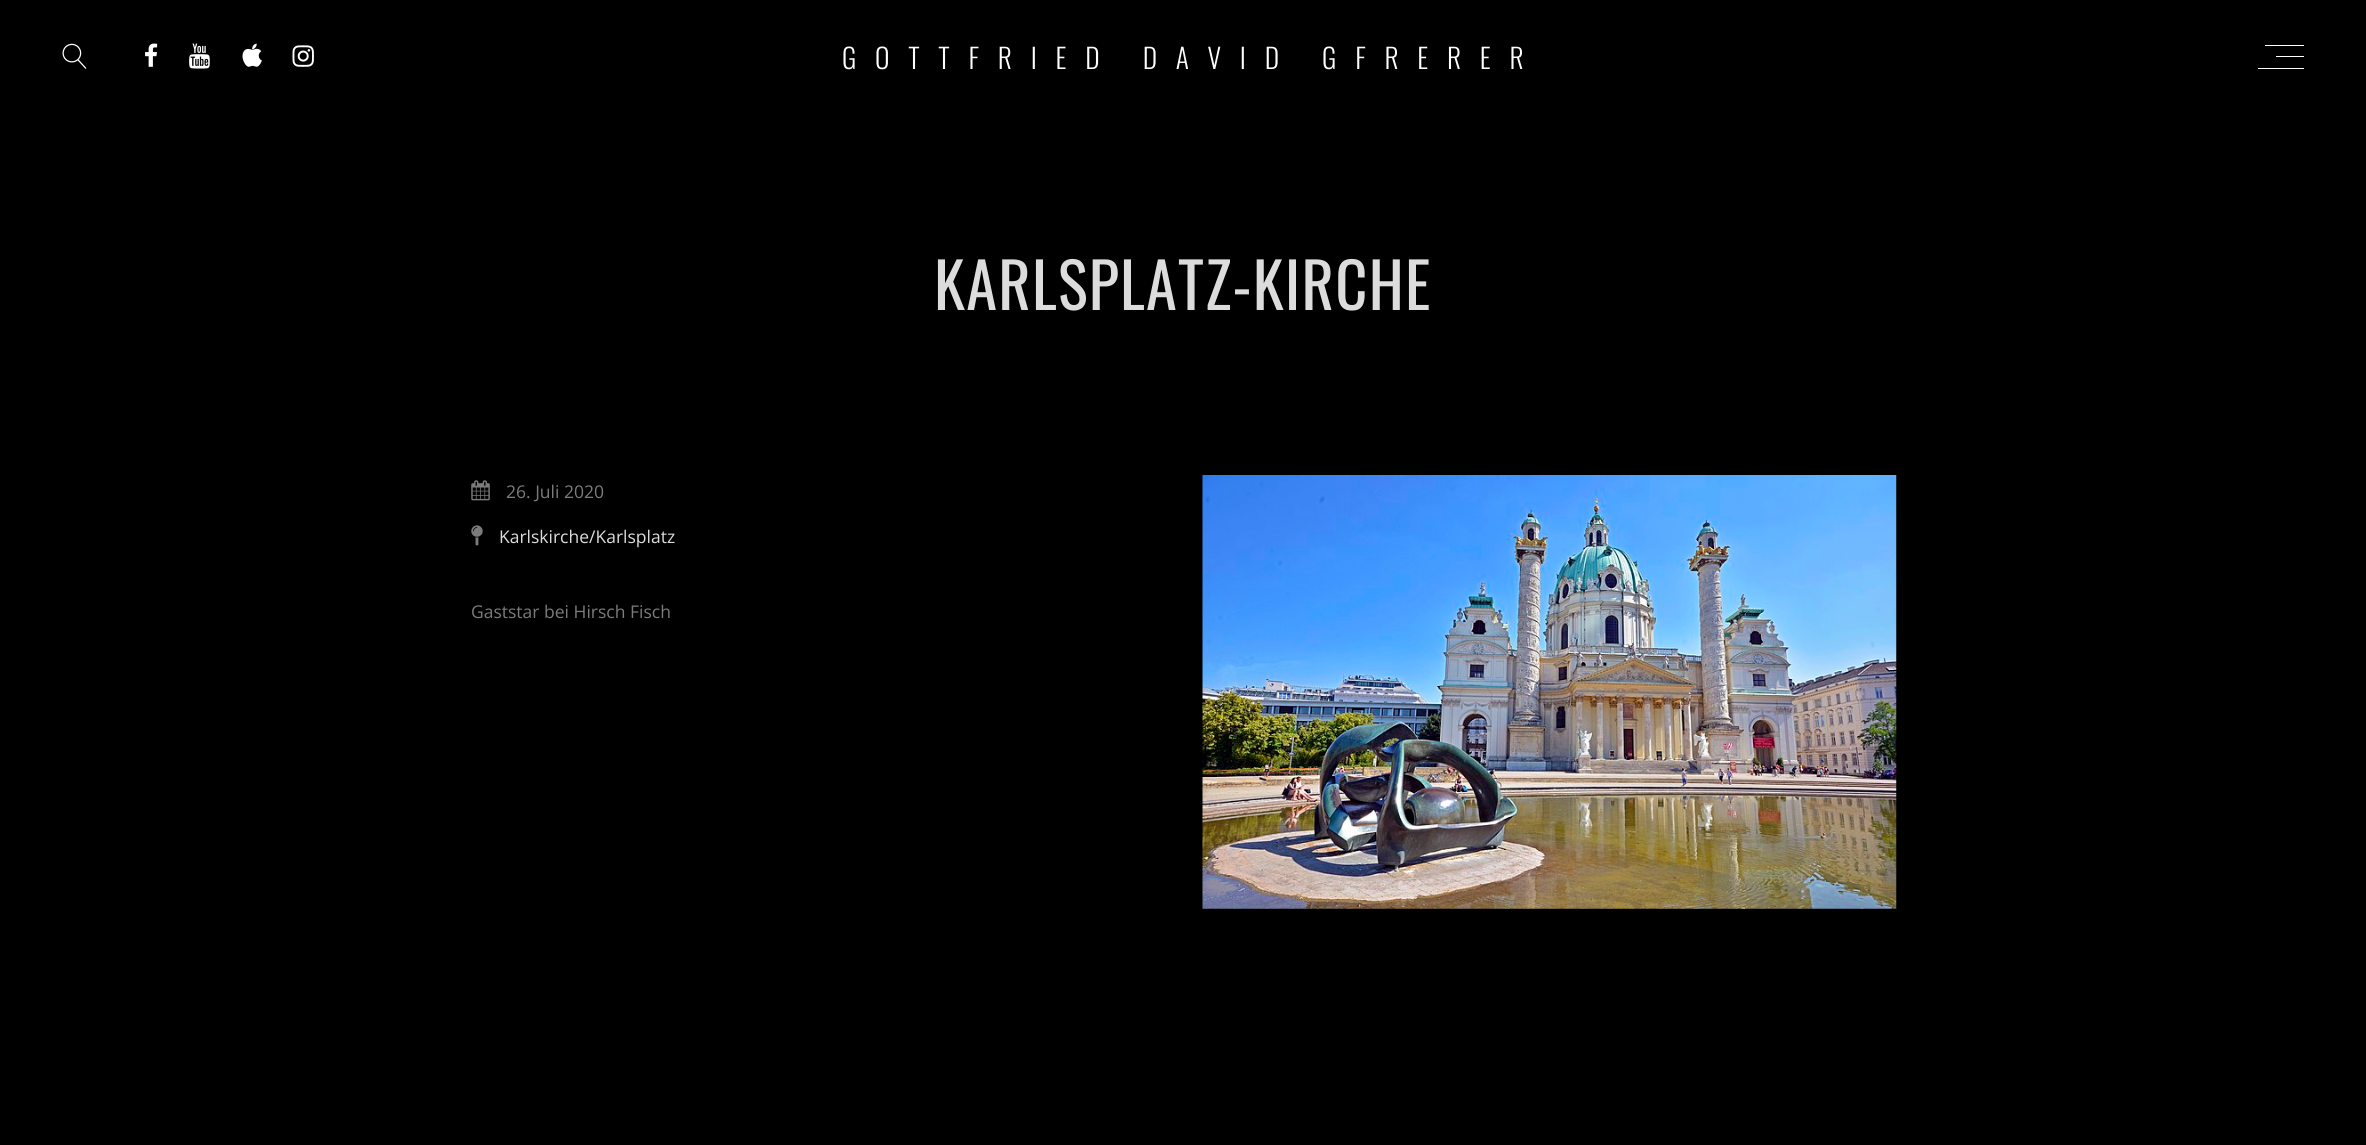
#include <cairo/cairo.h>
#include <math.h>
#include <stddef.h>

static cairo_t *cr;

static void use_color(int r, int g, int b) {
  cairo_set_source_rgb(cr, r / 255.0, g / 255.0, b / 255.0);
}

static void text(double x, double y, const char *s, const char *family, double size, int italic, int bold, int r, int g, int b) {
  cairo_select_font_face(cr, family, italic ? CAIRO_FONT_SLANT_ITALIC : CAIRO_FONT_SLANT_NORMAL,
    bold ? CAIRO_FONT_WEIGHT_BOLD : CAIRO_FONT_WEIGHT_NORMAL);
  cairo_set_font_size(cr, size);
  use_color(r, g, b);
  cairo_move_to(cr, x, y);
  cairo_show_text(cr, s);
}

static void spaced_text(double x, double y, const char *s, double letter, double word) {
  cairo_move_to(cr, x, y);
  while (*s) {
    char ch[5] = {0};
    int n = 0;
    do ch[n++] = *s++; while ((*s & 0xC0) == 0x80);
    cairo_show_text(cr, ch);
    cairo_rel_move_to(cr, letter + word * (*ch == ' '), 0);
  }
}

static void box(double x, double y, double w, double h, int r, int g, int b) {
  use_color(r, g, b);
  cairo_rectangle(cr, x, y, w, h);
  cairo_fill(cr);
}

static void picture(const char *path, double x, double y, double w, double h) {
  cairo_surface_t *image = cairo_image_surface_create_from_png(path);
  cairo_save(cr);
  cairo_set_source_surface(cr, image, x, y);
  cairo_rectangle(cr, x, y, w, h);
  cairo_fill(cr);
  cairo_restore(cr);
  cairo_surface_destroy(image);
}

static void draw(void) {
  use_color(0, 0, 0);
  cairo_paint(cr);
  picture("img_01.png", 62, 43, 25, 26);
  picture("img_02.png", 145, 43, 13, 24);
  picture("img_03.png", 189, 43, 21, 26);
  picture("img_04.png", 242, 43, 20, 24);
  picture("img_05.png", 292, 45, 22, 22);
  box(2265, 45, 39, 1, 255, 255, 255);
  box(2276, 56, 28, 1, 255, 255, 255);
  box(2258, 68, 46, 1, 255, 255, 255);
  picture("img_06.png", 471, 480, 19, 21);
  picture("img_07.png", 471, 525, 12, 21);
  picture("img_08.png", 1202, 475, 695, 434);
  cairo_select_font_face(cr, "Oswald Light", CAIRO_FONT_SLANT_NORMAL, CAIRO_FONT_WEIGHT_NORMAL);
  cairo_set_font_size(cr, 27.5);
  spaced_text(842, 69, "GOTTFRIED DAVID GFRERER", 18.75, 0);
  cairo_select_font_face(cr, "Oswald", CAIRO_FONT_SLANT_NORMAL, CAIRO_FONT_WEIGHT_NORMAL);
  cairo_set_font_size(cr, 62.5);
  use_color(220, 220, 220);
  spaced_text(934, 310, "KARLSPLATZ-KIRCHE", 1.25, 0);
  text(506, 498, "26. Juli 2020", "Open Sans", 17.5, 0, 0, 123, 123, 123);
  text(499, 543, "Karlskirche/Karlsplatz", "Open Sans", 17.5, 0, 0, 220, 220, 220);
  text(471, 618, "Gaststar bei Hirsch Fisch", "Open Sans", 17.5, 0, 0, 123, 123, 123);
}

int main(void) {
  cairo_surface_t *surface = cairo_image_surface_create(CAIRO_FORMAT_RGB24, 2366, 1145);
  cr = cairo_create(surface);
  cairo_font_options_t *options = cairo_font_options_create();
  cairo_font_options_set_hint_metrics(options, CAIRO_HINT_METRICS_OFF);
  cairo_font_options_set_hint_style(options, CAIRO_HINT_STYLE_NONE);
  cairo_set_font_options(cr, options);
  cairo_set_miter_limit(cr, 4);
  draw();
  cairo_surface_write_to_png(surface, "out.png");
  cairo_font_options_destroy(options);
  cairo_destroy(cr);
  cairo_surface_destroy(surface);
  return 0;
}
